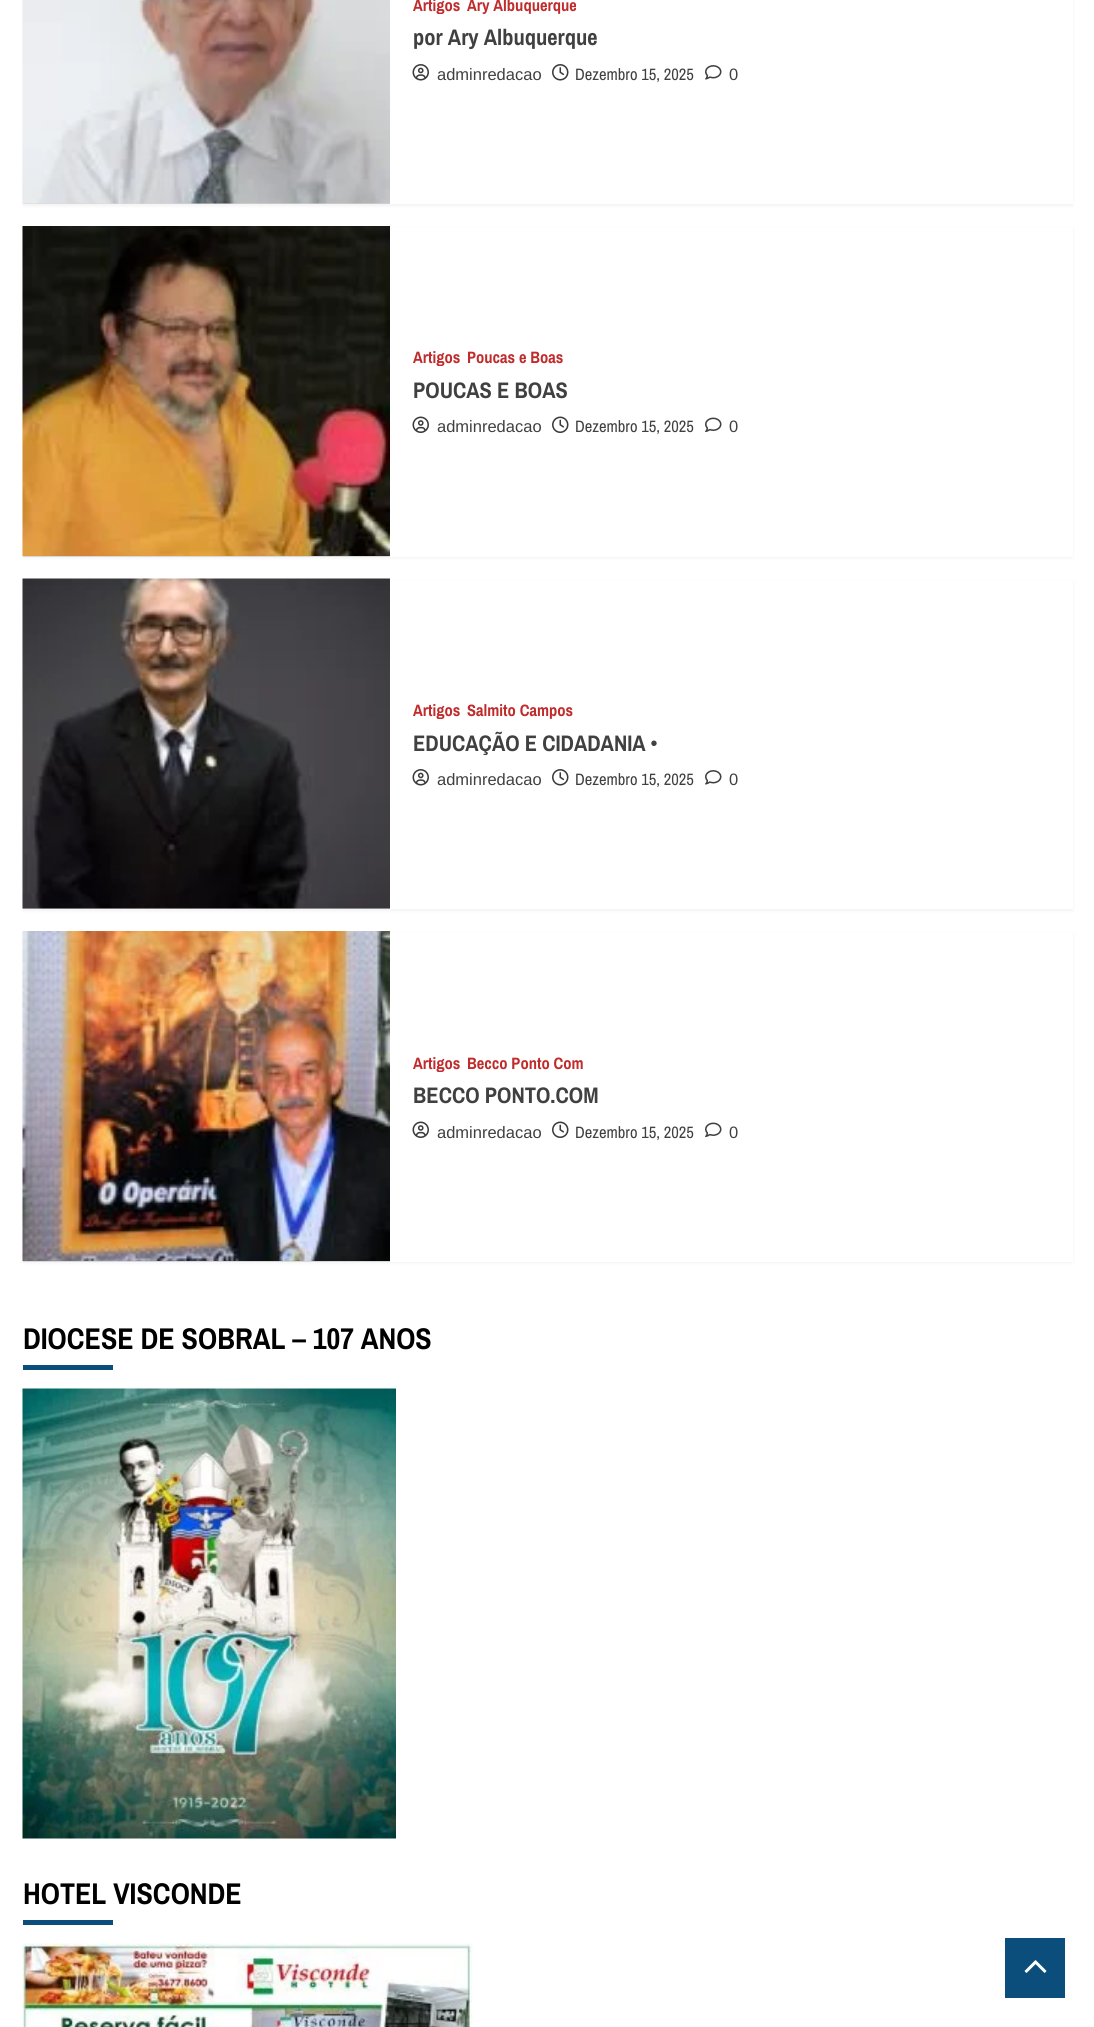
#include <cairo/cairo.h>
#include <math.h>
#include <stddef.h>

static cairo_t *cr;

static void use_color(int r, int g, int b) {
  cairo_set_source_rgb(cr, r / 255.0, g / 255.0, b / 255.0);
}

static void text(double x, double y, const char *s, const char *family, double size, int italic, int bold, int r, int g, int b) {
  cairo_select_font_face(cr, family, italic ? CAIRO_FONT_SLANT_ITALIC : CAIRO_FONT_SLANT_NORMAL,
    bold ? CAIRO_FONT_WEIGHT_BOLD : CAIRO_FONT_WEIGHT_NORMAL);
  cairo_set_font_size(cr, size);
  use_color(r, g, b);
  cairo_move_to(cr, x, y);
  cairo_show_text(cr, s);
}

static void box(double x, double y, double w, double h, int r, int g, int b) {
  use_color(r, g, b);
  cairo_rectangle(cr, x, y, w, h);
  cairo_fill(cr);
}

static void round_rect(double x, double y, double w, double h, double r) {
  cairo_new_sub_path(cr);
  cairo_arc(cr, x + w - r, y + h - r, r, 0, M_PI / 2);
  cairo_arc(cr, x + r, y + h - r, r, M_PI / 2, M_PI);
  cairo_arc(cr, x + r, y + r, r, M_PI, 1.5 * M_PI);
  cairo_arc(cr, x + w - r, y + r, r, 1.5 * M_PI, 2 * M_PI);
  cairo_close_path(cr);
}

static void shadow(double x, double y, double w, double h, double r, double blur, double alpha) {
  cairo_push_group_with_content(cr, CAIRO_CONTENT_ALPHA);
  cairo_set_operator(cr, CAIRO_OPERATOR_SOURCE);
  for (int i = 15; i >= -15 && fmin(w, h) + blur * i / 3 > 0; i -= 2) {
    double e = blur * i / 6;
    cairo_set_source_rgba(cr, 0, 0, 0, alpha * erfc((i - 1) / 8.5) / 2);
    round_rect(x - e, y - e, w + 2 * e, h + 2 * e, fmax(0, fmin(r + e + blur * .6, fmin(w, h) / 2 + e)));
    cairo_fill(cr);
  }
  cairo_pattern_t *soft = cairo_pop_group(cr);
  cairo_mask(cr, soft);
  cairo_pattern_destroy(soft);
}

static void picture(const char *path, double x, double y, double w, double h) {
  cairo_surface_t *image = cairo_image_surface_create_from_png(path);
  cairo_save(cr);
  cairo_set_source_surface(cr, image, x, y);
  cairo_rectangle(cr, x, y, w, h);
  cairo_fill(cr);
  cairo_restore(cr);
  cairo_surface_destroy(image);
}

static void draw(void) {
  use_color(255, 255, 255);
  cairo_paint(cr);
  use_color(0, 0, 0);
  shadow(23, -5, 1050, 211, 0, 1.5, 0.05);
  box(390, 0, 683, 204, 255, 255, 255);
  box(23, 203, 367, 1, 216, 216, 216);
  picture("img_01.png", 22, 0, 368, 204);
  picture("img_02.png", 412, 64, 17, 17);
  picture("img_03.png", 552, 64, 17, 17);
  picture("img_04.png", 705, 65, 17, 15);
  use_color(0, 0, 0);
  shadow(23, 228, 1050, 330, 0, 1.5, 0.05);
  box(390, 227, 683, 330, 255, 255, 255);
  box(23, 556, 367, 1, 216, 216, 216);
  picture("img_05.png", 22, 226, 368, 330);
  picture("img_06.png", 412, 416, 17, 17);
  picture("img_07.png", 552, 416, 17, 17);
  picture("img_08.png", 705, 417, 17, 15);
  use_color(0, 0, 0);
  shadow(23, 581, 1050, 330, 0, 1.5, 0.05);
  box(390, 580, 683, 329, 255, 255, 255);
  box(23, 908, 367, 1, 216, 216, 216);
  picture("img_09.png", 22, 578, 368, 331);
  picture("img_02.png", 412, 769, 17, 17);
  picture("img_03.png", 552, 769, 17, 17);
  picture("img_04.png", 705, 770, 17, 15);
  use_color(0, 0, 0);
  shadow(23, 933, 1050, 330, 0, 1.5, 0.05);
  box(390, 932, 683, 330, 255, 255, 255);
  box(23, 1261, 367, 1, 216, 216, 216);
  picture("img_10.png", 22, 931, 368, 330);
  picture("img_06.png", 412, 1121, 17, 17);
  picture("img_07.png", 552, 1121, 17, 17);
  picture("img_08.png", 705, 1122, 17, 15);
  box(23, 1365, 90, 5, 12, 78, 123);
  picture("img_11.png", 22, 1388, 374, 451);
  box(23, 1920, 90, 5, 12, 78, 123);
  picture("img_12.png", 22, 1943, 451, 84);
  box(1005, 1938, 60, 60, 12, 78, 123);
  picture("img_13.png", 1024, 1960, 23, 13);
  text(413, 11, "Artigos", "Archivo Narrow", 16.5, 0, 1, 192, 43, 43);
  text(467, 11, "Ary Albuquerque", "Archivo Narrow", 16.5, 0, 1, 192, 43, 43);
  text(413, 45, "por Ary Albuquerque", "Archivo Narrow", 22.5, 0, 1, 64, 64, 64);
  text(437, 80, "adminredacao", "Liberation Sans", 16.5, 0, 0, 64, 64, 64);
  text(575, 80, "Dezembro 15, 2025", "Archivo Narrow", 16.5, 0, 0, 64, 64, 64);
  text(729, 80, "0", "Liberation Sans", 16.5, 0, 0, 64, 64, 64);
  text(413, 363, "Artigos", "Archivo Narrow", 16.5, 0, 1, 192, 43, 43);
  text(467, 363, "Poucas e Boas", "Archivo Narrow", 16.5, 0, 1, 192, 43, 43);
  text(413, 398, "POUCAS E BOAS", "Archivo Narrow", 22.5, 0, 1, 64, 64, 64);
  text(437, 432, "adminredacao", "Liberation Sans", 16.5, 0, 0, 64, 64, 64);
  text(575, 432, "Dezembro 15, 2025", "Archivo Narrow", 16.5, 0, 0, 64, 64, 64);
  text(729, 432, "0", "Liberation Sans", 16.5, 0, 0, 64, 64, 64);
  text(413, 716, "Artigos", "Archivo Narrow", 16.5, 0, 1, 192, 43, 43);
  text(467, 716, "Salmito Campos", "Archivo Narrow", 16.5, 0, 1, 192, 43, 43);
  text(413, 751, "EDUCAÇÃO E CIDADANIA •", "Archivo Narrow", 22.5, 0, 1, 64, 64, 64);
  text(437, 785, "adminredacao", "Liberation Sans", 16.5, 0, 0, 64, 64, 64);
  text(575, 785, "Dezembro 15, 2025", "Archivo Narrow", 16.5, 0, 0, 64, 64, 64);
  text(729, 785, "0", "Liberation Sans", 16.5, 0, 0, 64, 64, 64);
  text(413, 1069, "Artigos", "Archivo Narrow", 16.5, 0, 1, 192, 43, 43);
  text(467, 1069, "Becco Ponto Com", "Archivo Narrow", 16.5, 0, 1, 192, 43, 43);
  text(413, 1103, "BECCO PONTO.COM", "Archivo Narrow", 22.5, 0, 1, 64, 64, 64);
  text(437, 1138, "adminredacao", "Liberation Sans", 16.5, 0, 0, 64, 64, 64);
  text(575, 1138, "Dezembro 15, 2025", "Archivo Narrow", 16.5, 0, 0, 64, 64, 64);
  text(729, 1138, "0", "Liberation Sans", 16.5, 0, 0, 64, 64, 64);
  text(23, 1349, "DIOCESE DE SOBRAL – 107 ANOS", "Archivo Narrow", 30, 0, 1, 0, 0, 0);
  text(23, 1904, "HOTEL VISCONDE", "Archivo Narrow", 30, 0, 1, 0, 0, 0);
}

int main(void) {
  cairo_surface_t *surface = cairo_image_surface_create(CAIRO_FORMAT_RGB24, 1094, 2027);
  cr = cairo_create(surface);
  cairo_font_options_t *options = cairo_font_options_create();
  cairo_font_options_set_hint_metrics(options, CAIRO_HINT_METRICS_OFF);
  cairo_font_options_set_hint_style(options, CAIRO_HINT_STYLE_NONE);
  cairo_set_font_options(cr, options);
  cairo_set_miter_limit(cr, 4);
  draw();
  cairo_surface_write_to_png(surface, "out.png");
  cairo_font_options_destroy(options);
  cairo_destroy(cr);
  cairo_surface_destroy(surface);
  return 0;
}
